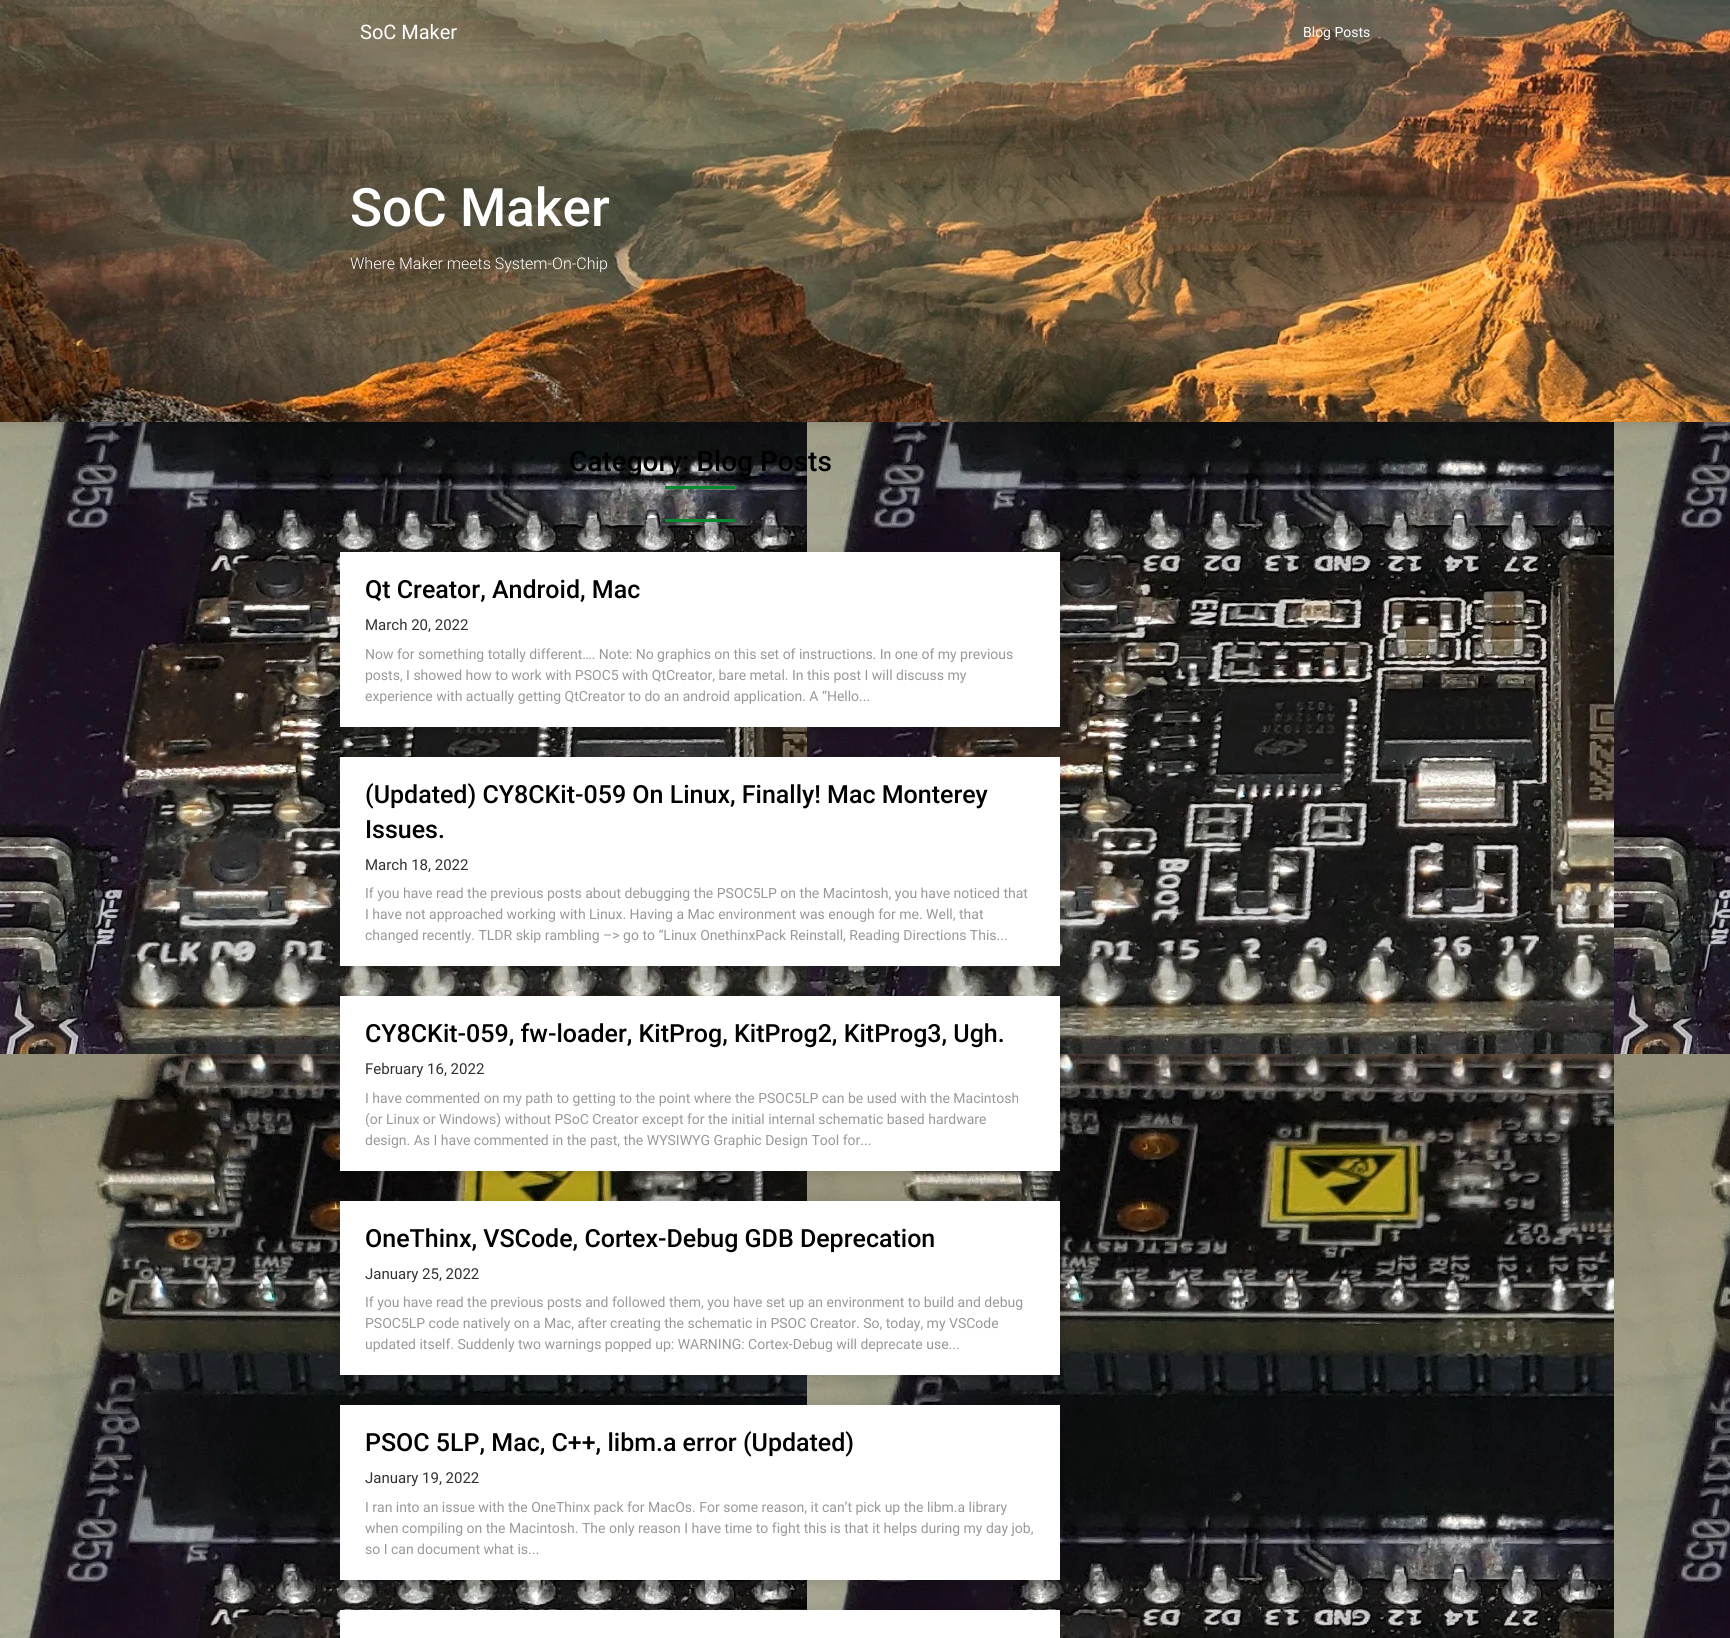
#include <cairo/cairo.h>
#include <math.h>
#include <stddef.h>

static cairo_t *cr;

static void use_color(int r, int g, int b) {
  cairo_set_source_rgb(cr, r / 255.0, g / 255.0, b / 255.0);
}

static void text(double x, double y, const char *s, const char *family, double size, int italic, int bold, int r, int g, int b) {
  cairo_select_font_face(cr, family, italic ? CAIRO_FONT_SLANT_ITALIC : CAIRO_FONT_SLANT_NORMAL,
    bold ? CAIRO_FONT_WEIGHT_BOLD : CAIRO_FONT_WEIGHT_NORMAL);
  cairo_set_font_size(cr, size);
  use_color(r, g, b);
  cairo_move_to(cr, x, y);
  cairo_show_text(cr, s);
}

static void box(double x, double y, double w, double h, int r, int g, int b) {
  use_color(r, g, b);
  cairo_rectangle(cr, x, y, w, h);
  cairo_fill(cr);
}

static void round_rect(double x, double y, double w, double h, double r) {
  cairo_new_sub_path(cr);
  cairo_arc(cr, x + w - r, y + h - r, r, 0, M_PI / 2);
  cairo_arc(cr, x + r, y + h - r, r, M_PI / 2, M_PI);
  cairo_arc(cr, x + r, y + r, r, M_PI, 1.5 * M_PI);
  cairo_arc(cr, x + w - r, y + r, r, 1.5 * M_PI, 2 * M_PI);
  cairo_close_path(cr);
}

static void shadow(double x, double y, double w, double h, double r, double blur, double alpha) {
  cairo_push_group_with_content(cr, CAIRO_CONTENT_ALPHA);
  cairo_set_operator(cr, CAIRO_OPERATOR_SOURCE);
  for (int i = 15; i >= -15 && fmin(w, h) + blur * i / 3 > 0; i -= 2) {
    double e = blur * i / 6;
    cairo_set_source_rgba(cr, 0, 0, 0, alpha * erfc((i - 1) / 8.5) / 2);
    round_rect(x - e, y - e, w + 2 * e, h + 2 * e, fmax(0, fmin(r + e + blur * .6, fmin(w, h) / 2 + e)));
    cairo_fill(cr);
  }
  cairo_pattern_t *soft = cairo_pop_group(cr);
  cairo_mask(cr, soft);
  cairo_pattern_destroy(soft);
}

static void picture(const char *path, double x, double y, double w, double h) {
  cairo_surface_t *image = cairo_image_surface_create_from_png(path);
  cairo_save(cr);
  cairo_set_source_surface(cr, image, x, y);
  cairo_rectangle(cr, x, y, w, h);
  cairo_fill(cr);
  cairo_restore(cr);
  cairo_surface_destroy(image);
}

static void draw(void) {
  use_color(255, 255, 255);
  cairo_paint(cr);
  picture("img_01.png", 0, 422, 1730, 1216);
  use_color(0, 0, 0);
  shadow(0, 0, 1730, 422, 0, 7.5, 0.2);
  picture("img_02.png", 0, 0, 1730, 422);
  box(665, 486, 70, 3, 5, 140, 46);
  box(665, 519, 70, 3, 5, 140, 46);
  use_color(0, 0, 0);
  shadow(340, 553, 720, 175, 0, 7.5, 0.15);
  box(340, 552, 720, 175, 255, 255, 255);
  use_color(0, 0, 0);
  shadow(340, 758, 720, 209, 0, 7.5, 0.15);
  box(340, 757, 720, 209, 255, 255, 255);
  use_color(0, 0, 0);
  shadow(340, 997, 720, 175, 0, 7.5, 0.15);
  box(340, 996, 720, 175, 255, 255, 255);
  use_color(0, 0, 0);
  shadow(340, 1202, 720, 174, 0, 7.5, 0.15);
  box(340, 1201, 720, 174, 255, 255, 255);
  use_color(0, 0, 0);
  shadow(340, 1406, 720, 175, 0, 7.5, 0.15);
  box(340, 1405, 720, 175, 255, 255, 255);
  use_color(0, 0, 0);
  shadow(340, 1611, 720, 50, 0, 7.5, 0.15);
  box(340, 1610, 720, 28, 255, 255, 255);
  text(360, 39, "SoC Maker", "Roboto", 20, 0, 0, 255, 255, 255);
  text(1303, 37, "Blog Posts", "Roboto", 14, 0, 0, 255, 255, 255);
  text(350, 226, "SoC Maker", "Roboto Medium", 53, 0, 0, 255, 255, 255);
  text(350, 269, "Where Maker meets System-On-Chip", "Roboto Light", 16, 0, 0, 255, 255, 255);
  text(569, 471, "Category: Blog Posts", "Roboto Medium", 28, 0, 0, 0, 0, 0);
  text(365, 598, "Qt Creator, Android, Mac", "Roboto Medium", 25, 0, 0, 0, 0, 0);
  text(365, 630, "March 20, 2022", "Roboto", 15, 0, 0, 49, 49, 49);
  text(365, 659, "Now for something totally different…. Note: No graphics on this set of instructions. In one of my previous", "Roboto", 14, 0, 0, 152, 152, 152);
  text(365, 680, "posts, I showed how to work with PSOC5 with QtCreator, bare metal. In this post I will discuss my", "Roboto", 14, 0, 0, 152, 152, 152);
  text(365, 701, "experience with actually getting QtCreator to do an android application. A “Hello...", "Roboto", 14, 0, 0, 152, 152, 152);
  text(365, 803, "(Updated) CY8CKit-059 On Linux, Finally! Mac Monterey", "Roboto Medium", 25, 0, 0, 0, 0, 0);
  text(365, 838, "Issues.", "Roboto Medium", 25, 0, 0, 0, 0, 0);
  text(365, 870, "March 18, 2022", "Roboto", 15, 0, 0, 49, 49, 49);
  text(365, 898, "If you have read the previous posts about debugging the PSOC5LP on the Macintosh, you have noticed that", "Roboto", 14, 0, 0, 152, 152, 152);
  text(365, 919, "I have not approached working with Linux. Having a Mac environment was enough for me. Well, that", "Roboto", 14, 0, 0, 152, 152, 152);
  text(365, 940, "changed recently. TLDR skip rambling –> go to “Linux OnethinxPack Reinstall, Reading Directions This...", "Roboto", 14, 0, 0, 152, 152, 152);
  text(365, 1042, "CY8CKit-059, fw-loader, KitProg, KitProg2, KitProg3, Ugh.", "Roboto Medium", 25, 0, 0, 0, 0, 0);
  text(365, 1074, "February 16, 2022", "Roboto", 15, 0, 0, 49, 49, 49);
  text(365, 1103, "I have commented on my path to getting to the point where the PSOC5LP can be used with the Macintosh", "Roboto", 14, 0, 0, 152, 152, 152);
  text(365, 1124, "(or Linux or Windows) without PSoC Creator except for the initial internal schematic based hardware", "Roboto", 14, 0, 0, 152, 152, 152);
  text(365, 1145, "design. As I have commented in the past, the WYSIWYG Graphic Design Tool for...", "Roboto", 14, 0, 0, 152, 152, 152);
  text(365, 1247, "OneThinx, VSCode, Cortex-Debug GDB Deprecation", "Roboto Medium", 25, 0, 0, 0, 0, 0);
  text(365, 1279, "January 25, 2022", "Roboto", 15, 0, 0, 49, 49, 49);
  text(365, 1307, "If you have read the previous posts and followed them, you have set up an environment to build and debug", "Roboto", 14, 0, 0, 152, 152, 152);
  text(365, 1328, "PSOC5LP code natively on a Mac, after creating the schematic in PSOC Creator. So, today, my VSCode", "Roboto", 14, 0, 0, 152, 152, 152);
  text(365, 1349, "updated itself. Suddenly two warnings popped up: WARNING: Cortex-Debug will deprecate use...", "Roboto", 14, 0, 0, 152, 152, 152);
  text(365, 1451, "PSOC 5LP, Mac, C++, libm.a error (Updated)", "Roboto Medium", 25, 0, 0, 0, 0, 0);
  text(365, 1483, "January 19, 2022", "Roboto", 15, 0, 0, 49, 49, 49);
  text(365, 1512, "I ran into an issue with the OneThinx pack for MacOs. For some reason, it can’t pick up the libm.a library", "Roboto", 14, 0, 0, 152, 152, 152);
  text(365, 1533, "when compiling on the Macintosh. The only reason I have time to fight this is that it helps during my day job,", "Roboto", 14, 0, 0, 152, 152, 152);
  text(365, 1554, "so I can document what is...", "Roboto", 14, 0, 0, 152, 152, 152);
}

int main(void) {
  cairo_surface_t *surface = cairo_image_surface_create(CAIRO_FORMAT_RGB24, 1730, 1638);
  cr = cairo_create(surface);
  cairo_font_options_t *options = cairo_font_options_create();
  cairo_font_options_set_hint_metrics(options, CAIRO_HINT_METRICS_OFF);
  cairo_font_options_set_hint_style(options, CAIRO_HINT_STYLE_NONE);
  cairo_set_font_options(cr, options);
  cairo_set_miter_limit(cr, 4);
  draw();
  cairo_surface_write_to_png(surface, "out.png");
  cairo_font_options_destroy(options);
  cairo_destroy(cr);
  cairo_surface_destroy(surface);
  return 0;
}
